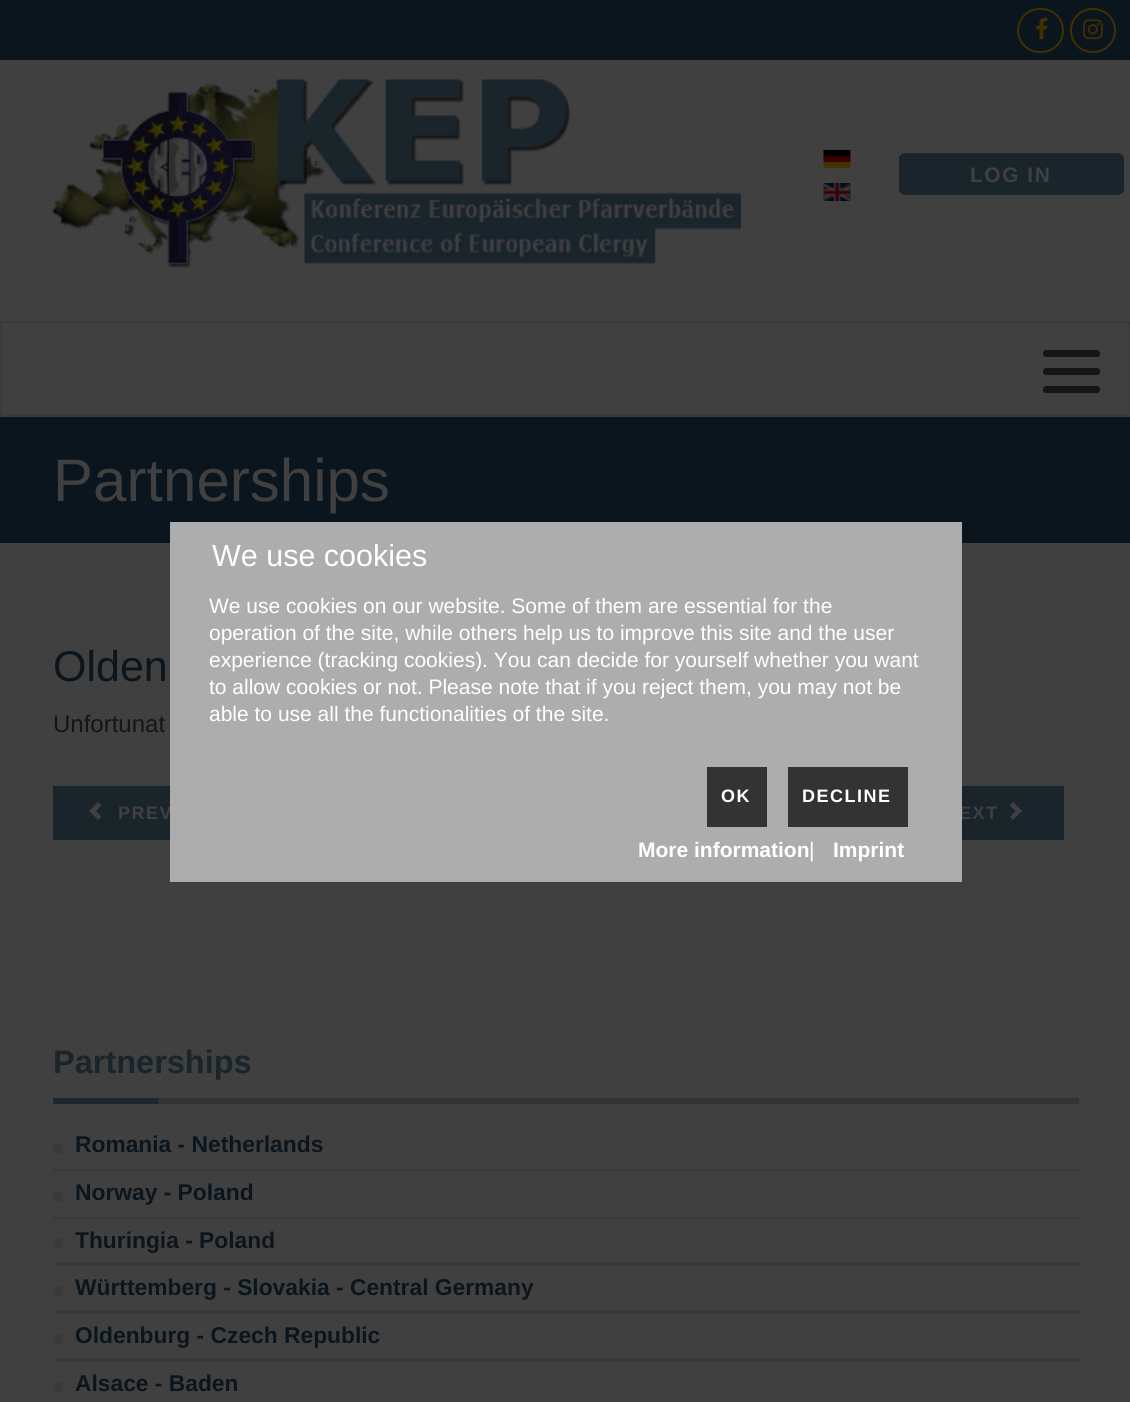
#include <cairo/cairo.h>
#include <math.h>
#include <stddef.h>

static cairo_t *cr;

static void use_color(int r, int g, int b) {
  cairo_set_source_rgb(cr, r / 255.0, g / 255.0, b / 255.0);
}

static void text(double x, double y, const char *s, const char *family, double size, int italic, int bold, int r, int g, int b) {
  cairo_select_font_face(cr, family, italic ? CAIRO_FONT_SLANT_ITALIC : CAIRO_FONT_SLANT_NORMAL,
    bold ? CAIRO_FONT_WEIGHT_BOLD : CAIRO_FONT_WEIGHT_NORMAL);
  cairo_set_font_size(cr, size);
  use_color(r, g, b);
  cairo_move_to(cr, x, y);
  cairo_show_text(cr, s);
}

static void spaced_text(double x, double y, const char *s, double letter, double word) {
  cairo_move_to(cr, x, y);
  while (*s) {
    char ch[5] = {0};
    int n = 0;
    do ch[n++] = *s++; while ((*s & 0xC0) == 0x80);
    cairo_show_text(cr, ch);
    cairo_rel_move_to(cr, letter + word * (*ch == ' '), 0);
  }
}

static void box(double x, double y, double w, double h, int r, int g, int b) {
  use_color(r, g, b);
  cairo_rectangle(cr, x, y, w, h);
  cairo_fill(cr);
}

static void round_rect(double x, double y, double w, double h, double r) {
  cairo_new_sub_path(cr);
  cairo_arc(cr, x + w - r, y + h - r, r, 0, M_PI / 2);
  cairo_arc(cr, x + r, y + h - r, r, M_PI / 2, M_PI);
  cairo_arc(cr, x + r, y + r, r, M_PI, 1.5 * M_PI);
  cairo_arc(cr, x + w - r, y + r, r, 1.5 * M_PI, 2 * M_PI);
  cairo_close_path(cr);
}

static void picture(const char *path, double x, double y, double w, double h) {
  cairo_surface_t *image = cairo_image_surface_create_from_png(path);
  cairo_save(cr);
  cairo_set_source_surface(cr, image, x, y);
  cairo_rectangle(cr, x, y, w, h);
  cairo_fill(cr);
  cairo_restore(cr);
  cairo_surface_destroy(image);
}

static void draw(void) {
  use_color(64, 64, 64);
  cairo_paint(cr);
  box(0, 0, 1130, 60, 10, 21, 29);
  round_rect(1018, 9, 45, 43, 21.5);
  use_color(64, 47, 0);
  cairo_stroke(cr);
  picture("img_01.png", 1036, 17, 12, 23);
  round_rect(1071, 9, 44, 43, 21.5);
  cairo_stroke(cr);
  picture("img_02.png", 1083, 19, 20, 21);
  picture("img_03.png", 52, 79, 689, 189);
  picture("img_04.png", 823, 150, 28, 18);
  picture("img_05.png", 823, 183, 28, 18);
  use_color(26, 36, 43);
  round_rect(899, 153, 225, 42, 6);
  cairo_fill(cr);
  cairo_set_source_rgba(cr, 0.251, 0.251, 0.251, 0.2);
  cairo_new_path(cr);
  cairo_move_to(cr, 904, 154);
  cairo_line_to(cr, 1118, 154);
  cairo_curve_to(cr, 1121, 154, 1124, 157, 1124, 160);
  cairo_line_to(cr, 1124, 159);
  cairo_curve_to(cr, 1124, 156, 1121, 153, 1118, 153);
  cairo_line_to(cr, 905, 153);
  cairo_curve_to(cr, 903, 153, 901, 154, 900, 156);
  cairo_curve_to(cr, 901, 155, 903, 154, 904, 154);
  cairo_close_path(cr);
  cairo_fill(cr);
  cairo_rectangle(cr, 1, 322, 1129, 94);
  use_color(58, 58, 58);
  cairo_stroke(cr);
  use_color(21, 21, 21);
  round_rect(1043, 368, 57, 7, 3);
  cairo_fill(cr);
  round_rect(1043, 350, 57, 7, 3);
  cairo_fill(cr);
  round_rect(1043, 386, 57, 7, 3);
  cairo_fill(cr);
  box(0, 417, 1130, 126, 10, 21, 29);
  box(53, 786, 117, 54, 26, 36, 43);
  use_color(64, 64, 64);
  cairo_new_path(cr);
  cairo_move_to(cr, 98, 820);
  cairo_line_to(cr, 89, 811);
  cairo_line_to(cr, 98, 802);
  cairo_line_to(cr, 101.5, 805.5);
  cairo_line_to(cr, 96, 811);
  cairo_line_to(cr, 101.5, 817);
  cairo_close_path(cr);
  cairo_fill(cr);
  box(962, 786, 102, 54, 26, 36, 43);
  use_color(64, 64, 64);
  cairo_new_path(cr);
  cairo_move_to(cr, 1013, 802);
  cairo_line_to(cr, 1022, 811);
  cairo_line_to(cr, 1013, 820);
  cairo_line_to(cr, 1010, 817);
  cairo_line_to(cr, 1015.5, 811);
  cairo_line_to(cr, 1010, 805.5);
  cairo_close_path(cr);
  cairo_fill(cr);
  box(53, 1098, 105, 6, 31, 39, 45);
  box(158, 1098, 921, 6, 51, 51, 51);
  box(53, 1169, 1026, 2, 56, 56, 56);
  use_color(58, 58, 58);
  round_rect(53, 1143, 10, 11, 5);
  cairo_fill(cr);
  box(53, 1217, 1026, 2, 56, 56, 56);
  use_color(58, 58, 58);
  round_rect(53, 1191, 10, 11, 5);
  cairo_fill(cr);
  box(53, 1263, 1026, 2, 56, 56, 56);
  use_color(58, 58, 58);
  cairo_arc(cr, 58, 1243, 5, 0, 2 * M_PI);
  cairo_fill(cr);
  box(53, 1311, 1026, 2, 56, 56, 56);
  use_color(58, 58, 58);
  cairo_arc(cr, 58, 1291, 5, 0, 2 * M_PI);
  cairo_fill(cr);
  box(53, 1359, 1026, 2, 56, 56, 56);
  use_color(58, 58, 58);
  cairo_arc(cr, 58, 1339, 5, 0, 2 * M_PI);
  cairo_fill(cr);
  cairo_arc(cr, 58, 1387, 5, 0, 2 * M_PI);
  cairo_fill(cr);
  cairo_select_font_face(cr, "Liberation Sans", CAIRO_FONT_SLANT_NORMAL, CAIRO_FONT_WEIGHT_BOLD);
  cairo_set_font_size(cr, 21);
  use_color(64, 64, 64);
  spaced_text(970, 182, "LOG IN", 1.5, 0);
  text(53, 501, "Partnerships", "Liberation Sans", 60, 0, 0, 64, 64, 64);
  text(53, 681, "Olden", "Liberation Sans", 43, 0, 0, 10, 21, 29);
  text(53, 732, "Unfortunat", "Liberation Sans", 24, 0, 0, 21, 21, 21);
  cairo_select_font_face(cr, "Liberation Sans", CAIRO_FONT_SLANT_NORMAL, CAIRO_FONT_WEIGHT_BOLD);
  cairo_set_font_size(cr, 18);
  use_color(64, 64, 64);
  spaced_text(118, 819, "PREV", 1.5, 0);
  spaced_text(959, 819, "EXT", 1.5, 0);
  box(170, 522, 792, 360, 173, 173, 173);
  box(788, 767, 120, 60, 51, 51, 51);
  use_color(255, 255, 255);
  spaced_text(802, 802, "DECLINE", 1.5, 0);
  box(707, 767, 60, 60, 51, 51, 51);
  use_color(255, 255, 255);
  spaced_text(721, 802, "OK", 1.5, 0);
  text(209, 721, "able to use all the functionalities of the site.", "Liberation Sans", 21, 0, 0, 255, 255, 255);
  text(209, 694, "to allow cookies or not. Please note that if you reject them, you may not be", "Liberation Sans", 21, 0, 0, 255, 255, 255);
  text(209, 667, "experience (tracking cookies). You can decide for yourself whether you want", "Liberation Sans", 21, 0, 0, 255, 255, 255);
  text(209, 640, "operation of the site, while others help us to improve this site and the user", "Liberation Sans", 21, 0, 0, 255, 255, 255);
  text(209, 613, "We use cookies on our website. Some of them are essential for the", "Liberation Sans", 21, 0, 0, 255, 255, 255);
  text(212, 566, "We use cookies", "Liberation Sans", 30.5, 0, 0, 255, 255, 255);
  text(833, 857, "Imprint", "Liberation Sans", 21, 0, 1, 255, 255, 255);
  text(809, 857, "|", "Liberation Sans", 21, 0, 0, 255, 255, 255);
  text(638, 857, "More information", "Liberation Sans", 21, 0, 1, 255, 255, 255);
  text(53, 1073, "Partnerships", "Liberation Sans", 32.5, 0, 1, 26, 36, 43);
  text(75, 1152, "Romania - Netherlands", "Liberation Sans", 22.8, 0, 1, 10, 21, 29);
  text(75, 1200, "Norway - Poland", "Liberation Sans", 22.8, 0, 1, 10, 21, 29);
  text(75, 1248, "Thuringia - Poland", "Liberation Sans", 22.8, 0, 1, 10, 21, 29);
  text(75, 1295, "Württemberg - Slovakia - Central Germany", "Liberation Sans", 22.8, 0, 1, 10, 21, 29);
  text(75, 1343, "Oldenburg - Czech Republic", "Liberation Sans", 22.8, 0, 1, 10, 21, 29);
  text(75, 1391, "Alsace - Baden", "Liberation Sans", 22.8, 0, 1, 10, 21, 29);
}

int main(void) {
  cairo_surface_t *surface = cairo_image_surface_create(CAIRO_FORMAT_RGB24, 1130, 1402);
  cr = cairo_create(surface);
  cairo_font_options_t *options = cairo_font_options_create();
  cairo_font_options_set_hint_metrics(options, CAIRO_HINT_METRICS_OFF);
  cairo_font_options_set_hint_style(options, CAIRO_HINT_STYLE_NONE);
  cairo_set_font_options(cr, options);
  cairo_set_miter_limit(cr, 4);
  draw();
  cairo_surface_write_to_png(surface, "out.png");
  cairo_font_options_destroy(options);
  cairo_destroy(cr);
  cairo_surface_destroy(surface);
  return 0;
}
